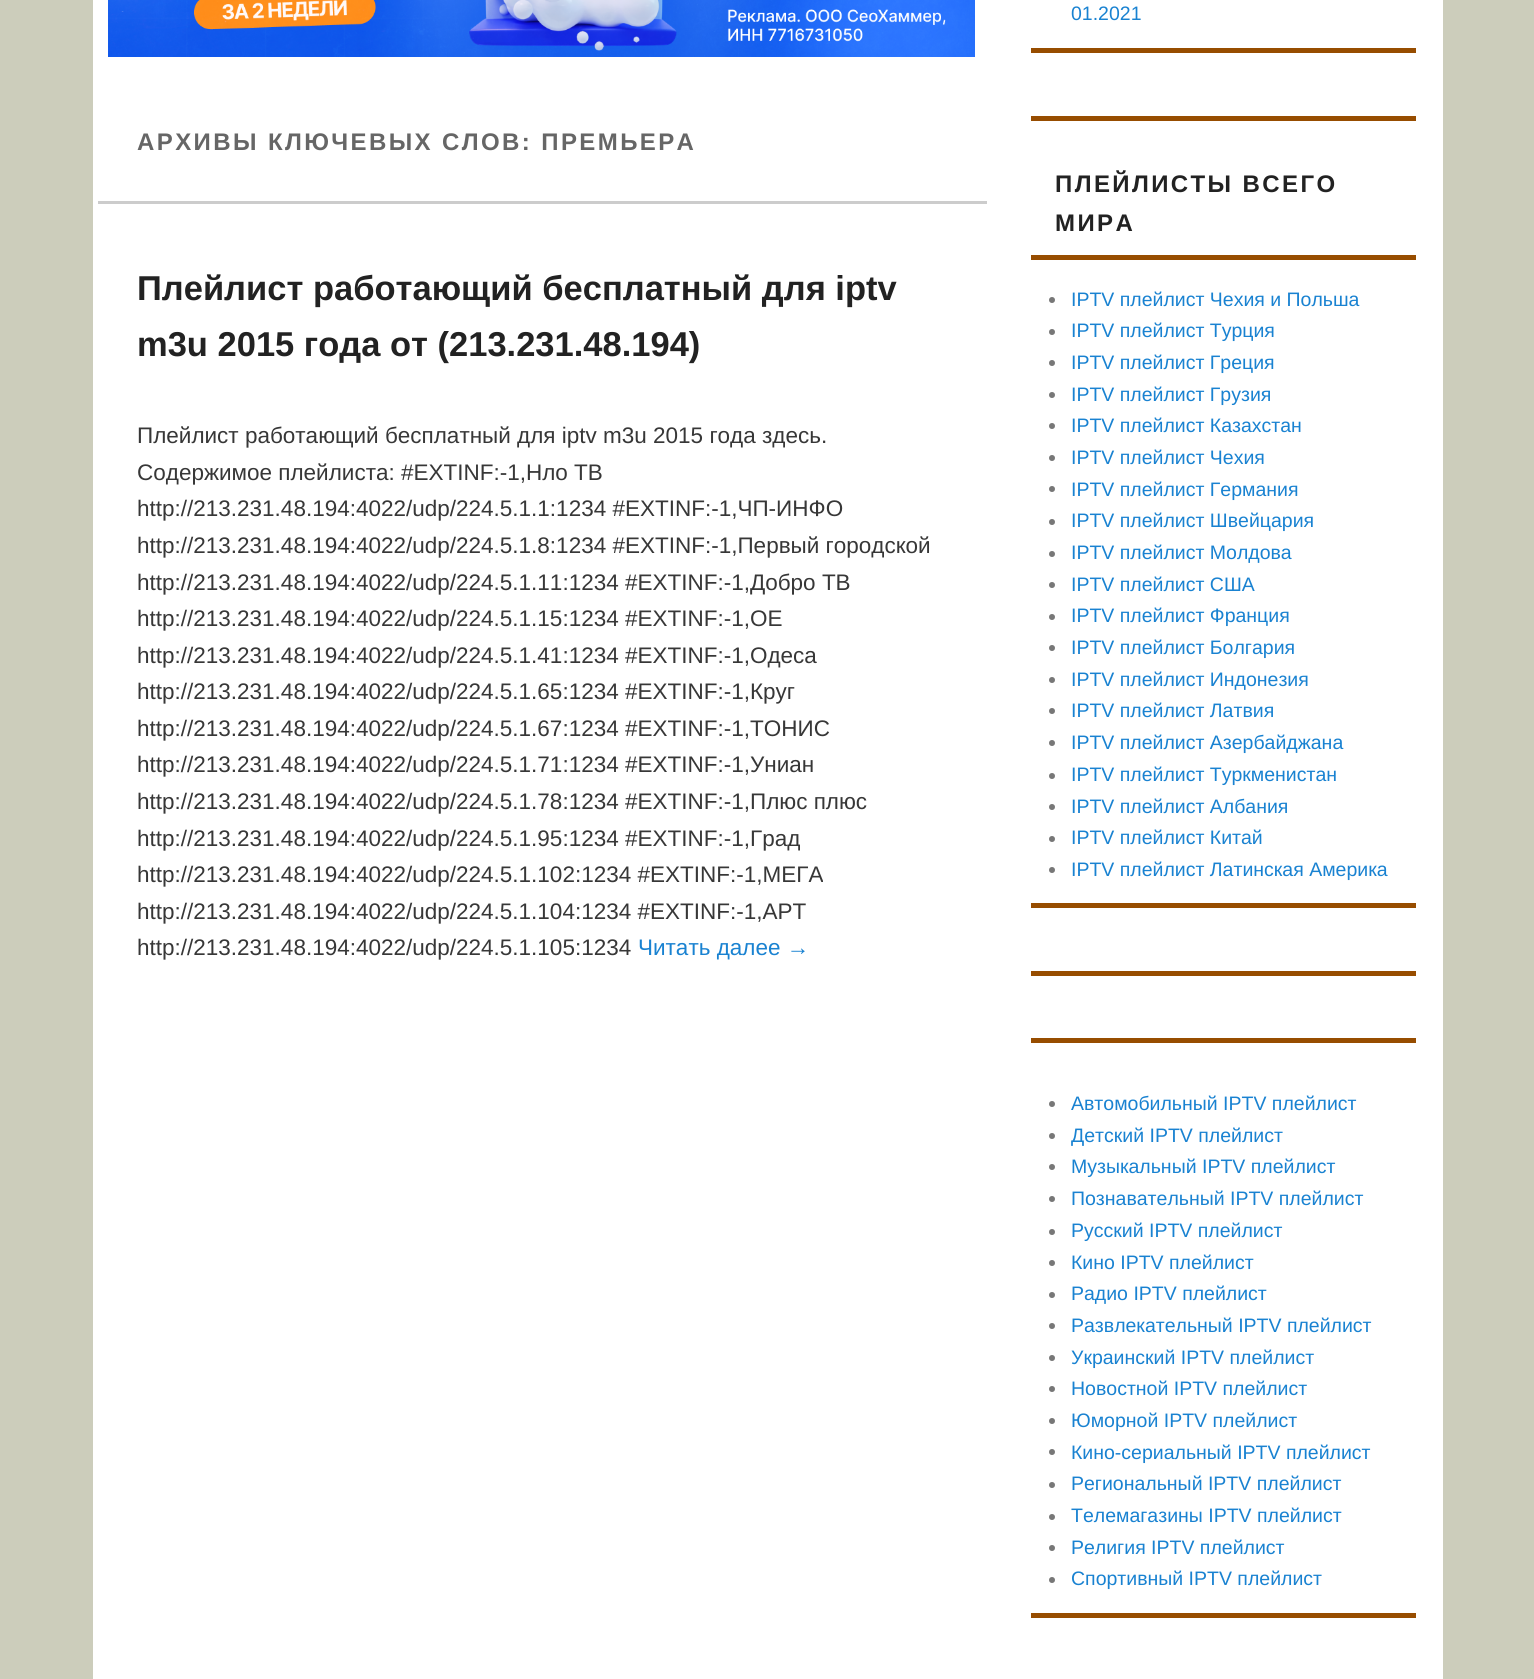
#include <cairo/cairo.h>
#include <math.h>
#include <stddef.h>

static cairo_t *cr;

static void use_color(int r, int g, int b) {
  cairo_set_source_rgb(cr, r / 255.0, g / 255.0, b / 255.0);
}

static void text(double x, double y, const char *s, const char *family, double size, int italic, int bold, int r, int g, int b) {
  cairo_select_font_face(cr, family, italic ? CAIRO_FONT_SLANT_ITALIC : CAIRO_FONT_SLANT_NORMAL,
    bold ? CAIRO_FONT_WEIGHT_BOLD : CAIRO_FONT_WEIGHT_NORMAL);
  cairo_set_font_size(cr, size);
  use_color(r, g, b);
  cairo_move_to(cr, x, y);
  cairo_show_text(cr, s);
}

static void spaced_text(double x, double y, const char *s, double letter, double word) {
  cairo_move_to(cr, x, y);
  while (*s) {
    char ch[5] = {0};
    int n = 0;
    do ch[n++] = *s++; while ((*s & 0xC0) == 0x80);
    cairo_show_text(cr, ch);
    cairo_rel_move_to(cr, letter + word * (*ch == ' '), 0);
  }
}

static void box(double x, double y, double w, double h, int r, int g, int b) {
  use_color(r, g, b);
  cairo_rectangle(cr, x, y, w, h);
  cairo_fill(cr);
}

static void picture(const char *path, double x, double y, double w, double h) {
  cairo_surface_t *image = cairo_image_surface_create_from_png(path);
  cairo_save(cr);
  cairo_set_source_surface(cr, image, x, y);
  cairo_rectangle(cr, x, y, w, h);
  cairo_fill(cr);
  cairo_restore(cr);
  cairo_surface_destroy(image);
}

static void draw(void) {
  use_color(204, 205, 187);
  cairo_paint(cr);
  box(93, 0, 1350, 1679, 255, 255, 255);
  picture("img_01.png", 108, 0, 867, 57);
  box(98, 201, 889, 3, 204, 204, 204);
  box(1031, 48, 385, 5, 151, 77, 0);
  box(1031, 116, 385, 5, 151, 77, 0);
  box(1031, 903, 385, 5, 151, 77, 0);
  box(1031, 255, 385, 5, 151, 77, 0);
  use_color(119, 119, 119);
  cairo_arc(cr, 1052, 300, 3, 0, 2 * M_PI);
  cairo_fill(cr);
  cairo_arc(cr, 1052, 332, 3, 0, 2 * M_PI);
  cairo_fill(cr);
  cairo_arc(cr, 1052, 363, 3, 0, 2 * M_PI);
  cairo_fill(cr);
  cairo_arc(cr, 1052, 395, 3, 0, 2 * M_PI);
  cairo_fill(cr);
  cairo_arc(cr, 1052, 426, 3, 0, 2 * M_PI);
  cairo_fill(cr);
  cairo_arc(cr, 1052, 458, 3, 0, 2 * M_PI);
  cairo_fill(cr);
  cairo_arc(cr, 1052, 489, 3, 0, 2 * M_PI);
  cairo_fill(cr);
  cairo_arc(cr, 1052, 522, 3, 0, 2 * M_PI);
  cairo_fill(cr);
  cairo_arc(cr, 1052, 554, 3, 0, 2 * M_PI);
  cairo_fill(cr);
  cairo_arc(cr, 1052, 585, 3, 0, 2 * M_PI);
  cairo_fill(cr);
  cairo_arc(cr, 1052, 617, 3, 0, 2 * M_PI);
  cairo_fill(cr);
  cairo_arc(cr, 1052, 648, 3, 0, 2 * M_PI);
  cairo_fill(cr);
  cairo_arc(cr, 1052, 680, 3, 0, 2 * M_PI);
  cairo_fill(cr);
  cairo_arc(cr, 1052, 711, 3, 0, 2 * M_PI);
  cairo_fill(cr);
  cairo_arc(cr, 1052, 743, 3, 0, 2 * M_PI);
  cairo_fill(cr);
  cairo_arc(cr, 1052, 776, 3, 0, 2 * M_PI);
  cairo_fill(cr);
  cairo_arc(cr, 1052, 807, 3, 0, 2 * M_PI);
  cairo_fill(cr);
  cairo_arc(cr, 1052, 839, 3, 0, 2 * M_PI);
  cairo_fill(cr);
  cairo_arc(cr, 1052, 870, 3, 0, 2 * M_PI);
  cairo_fill(cr);
  box(1031, 971, 385, 5, 151, 77, 0);
  box(1031, 1038, 385, 5, 151, 77, 0);
  box(1031, 1613, 385, 5, 151, 77, 0);
  use_color(119, 119, 119);
  cairo_arc(cr, 1052, 1104, 3, 0, 2 * M_PI);
  cairo_fill(cr);
  cairo_arc(cr, 1052, 1136, 3, 0, 2 * M_PI);
  cairo_fill(cr);
  cairo_arc(cr, 1052, 1167, 3, 0, 2 * M_PI);
  cairo_fill(cr);
  cairo_arc(cr, 1052, 1199, 3, 0, 2 * M_PI);
  cairo_fill(cr);
  cairo_arc(cr, 1052, 1232, 3, 0, 2 * M_PI);
  cairo_fill(cr);
  cairo_arc(cr, 1052, 1263, 3, 0, 2 * M_PI);
  cairo_fill(cr);
  cairo_arc(cr, 1052, 1295, 3, 0, 2 * M_PI);
  cairo_fill(cr);
  cairo_arc(cr, 1052, 1326, 3, 0, 2 * M_PI);
  cairo_fill(cr);
  cairo_arc(cr, 1052, 1358, 3, 0, 2 * M_PI);
  cairo_fill(cr);
  cairo_arc(cr, 1052, 1389, 3, 0, 2 * M_PI);
  cairo_fill(cr);
  cairo_arc(cr, 1052, 1421, 3, 0, 2 * M_PI);
  cairo_fill(cr);
  cairo_arc(cr, 1052, 1452, 3, 0, 2 * M_PI);
  cairo_fill(cr);
  cairo_arc(cr, 1052, 1485, 3, 0, 2 * M_PI);
  cairo_fill(cr);
  cairo_arc(cr, 1052, 1517, 3, 0, 2 * M_PI);
  cairo_fill(cr);
  cairo_arc(cr, 1052, 1548, 3, 0, 2 * M_PI);
  cairo_fill(cr);
  cairo_arc(cr, 1052, 1580, 3, 0, 2 * M_PI);
  cairo_fill(cr);
  cairo_select_font_face(cr, "Liberation Sans", CAIRO_FONT_SLANT_NORMAL, CAIRO_FONT_WEIGHT_BOLD);
  cairo_set_font_size(cr, 24);
  use_color(102, 102, 102);
  spaced_text(137, 150, "АРХИВЫ КЛЮЧЕВЫХ СЛОВ: ПРЕМЬЕРА", 2.4, 0);
  text(137, 300, "Плейлист работающий бесплатный для iptv", "Liberation Sans", 34.5, 0, 1, 34, 34, 34);
  text(137, 356, "m3u 2015 года от (213.231.48.194)", "Liberation Sans", 34.5, 0, 1, 34, 34, 34);
  text(137, 443, "Плейлист работающий бесплатный для iptv m3u 2015 года здесь.", "Liberation Sans", 22.5, 0, 0, 55, 55, 55);
  text(137, 480, "Содержимое плейлиста: #EXTINF:-1,Нло ТВ", "Liberation Sans", 22.5, 0, 0, 55, 55, 55);
  text(137, 516, "http://213.231.48.194:4022/udp/224.5.1.1:1234 #EXTINF:-1,ЧП-ИНФО", "Liberation Sans", 22.5, 0, 0, 55, 55, 55);
  text(137, 553, "http://213.231.48.194:4022/udp/224.5.1.8:1234 #EXTINF:-1,Первый городской", "Liberation Sans", 22.5, 0, 0, 55, 55, 55);
  text(137, 590, "http://213.231.48.194:4022/udp/224.5.1.11:1234 #EXTINF:-1,Добро ТВ", "Liberation Sans", 22.5, 0, 0, 55, 55, 55);
  text(137, 626, "http://213.231.48.194:4022/udp/224.5.1.15:1234 #EXTINF:-1,ОЕ", "Liberation Sans", 22.5, 0, 0, 55, 55, 55);
  text(137, 663, "http://213.231.48.194:4022/udp/224.5.1.41:1234 #EXTINF:-1,Одеса", "Liberation Sans", 22.5, 0, 0, 55, 55, 55);
  text(137, 699, "http://213.231.48.194:4022/udp/224.5.1.65:1234 #EXTINF:-1,Круг", "Liberation Sans", 22.5, 0, 0, 55, 55, 55);
  text(137, 736, "http://213.231.48.194:4022/udp/224.5.1.67:1234 #EXTINF:-1,ТОНИС", "Liberation Sans", 22.5, 0, 0, 55, 55, 55);
  text(137, 772, "http://213.231.48.194:4022/udp/224.5.1.71:1234 #EXTINF:-1,Униан", "Liberation Sans", 22.5, 0, 0, 55, 55, 55);
  text(137, 809, "http://213.231.48.194:4022/udp/224.5.1.78:1234 #EXTINF:-1,Плюс плюс", "Liberation Sans", 22.5, 0, 0, 55, 55, 55);
  text(137, 846, "http://213.231.48.194:4022/udp/224.5.1.95:1234 #EXTINF:-1,Град", "Liberation Sans", 22.5, 0, 0, 55, 55, 55);
  text(137, 882, "http://213.231.48.194:4022/udp/224.5.1.102:1234 #EXTINF:-1,МЕГА", "Liberation Sans", 22.5, 0, 0, 55, 55, 55);
  text(137, 919, "http://213.231.48.194:4022/udp/224.5.1.104:1234 #EXTINF:-1,АРТ", "Liberation Sans", 22.5, 0, 0, 55, 55, 55);
  text(137, 955, "http://213.231.48.194:4022/udp/224.5.1.105:1234", "Liberation Sans", 22.5, 0, 0, 55, 55, 55);
  text(638, 955, "Читать далее →", "Liberation Sans", 22.5, 0, 0, 25, 130, 209);
  text(1071, 20, "01.2021", "Liberation Sans", 19.5, 0, 0, 25, 130, 209);
  cairo_select_font_face(cr, "Liberation Sans", CAIRO_FONT_SLANT_NORMAL, CAIRO_FONT_WEIGHT_BOLD);
  cairo_set_font_size(cr, 24);
  use_color(34, 34, 34);
  spaced_text(1055, 192, "ПЛЕЙЛИСТЫ ВСЕГО", 2.4, 0);
  spaced_text(1055, 231, "МИРА", 2.4, 0);
  text(1071, 306, "IPTV плейлист Чехия и Польша", "Liberation Sans", 19.5, 0, 0, 25, 130, 209);
  text(1071, 337, "IPTV плейлист Турция", "Liberation Sans", 19.5, 0, 0, 25, 130, 209);
  text(1071, 369, "IPTV плейлист Греция", "Liberation Sans", 19.5, 0, 0, 25, 130, 209);
  text(1071, 401, "IPTV плейлист Грузия", "Liberation Sans", 19.5, 0, 0, 25, 130, 209);
  text(1071, 432, "IPTV плейлист Казахстан", "Liberation Sans", 19.5, 0, 0, 25, 130, 209);
  text(1071, 464, "IPTV плейлист Чехия", "Liberation Sans", 19.5, 0, 0, 25, 130, 209);
  text(1071, 496, "IPTV плейлист Германия", "Liberation Sans", 19.5, 0, 0, 25, 130, 209);
  text(1071, 527, "IPTV плейлист Швейцария", "Liberation Sans", 19.5, 0, 0, 25, 130, 209);
  text(1071, 559, "IPTV плейлист Молдова", "Liberation Sans", 19.5, 0, 0, 25, 130, 209);
  text(1071, 591, "IPTV плейлист США", "Liberation Sans", 19.5, 0, 0, 25, 130, 209);
  text(1071, 622, "IPTV плейлист Франция", "Liberation Sans", 19.5, 0, 0, 25, 130, 209);
  text(1071, 654, "IPTV плейлист Болгария", "Liberation Sans", 19.5, 0, 0, 25, 130, 209);
  text(1071, 686, "IPTV плейлист Индонезия", "Liberation Sans", 19.5, 0, 0, 25, 130, 209);
  text(1071, 717, "IPTV плейлист Латвия", "Liberation Sans", 19.5, 0, 0, 25, 130, 209);
  text(1071, 749, "IPTV плейлист Азербайджана", "Liberation Sans", 19.5, 0, 0, 25, 130, 209);
  text(1071, 781, "IPTV плейлист Туркменистан", "Liberation Sans", 19.5, 0, 0, 25, 130, 209);
  text(1071, 813, "IPTV плейлист Албания", "Liberation Sans", 19.5, 0, 0, 25, 130, 209);
  text(1071, 844, "IPTV плейлист Китай", "Liberation Sans", 19.5, 0, 0, 25, 130, 209);
  text(1071, 876, "IPTV плейлист Латинская Америка", "Liberation Sans", 19.5, 0, 0, 25, 130, 209);
  text(1071, 1110, "Автомобильный IPTV плейлист", "Liberation Sans", 19.5, 0, 0, 25, 130, 209);
  text(1071, 1142, "Детский IPTV плейлист", "Liberation Sans", 19.5, 0, 0, 25, 130, 209);
  text(1071, 1173, "Музыкальный IPTV плейлист", "Liberation Sans", 19.5, 0, 0, 25, 130, 209);
  text(1071, 1205, "Познавательный IPTV плейлист", "Liberation Sans", 19.5, 0, 0, 25, 130, 209);
  text(1071, 1237, "Русский IPTV плейлист", "Liberation Sans", 19.5, 0, 0, 25, 130, 209);
  text(1071, 1269, "Кино IPTV плейлист", "Liberation Sans", 19.5, 0, 0, 25, 130, 209);
  text(1071, 1300, "Радио IPTV плейлист", "Liberation Sans", 19.5, 0, 0, 25, 130, 209);
  text(1071, 1332, "Развлекательный IPTV плейлист", "Liberation Sans", 19.5, 0, 0, 25, 130, 209);
  text(1071, 1364, "Украинский IPTV плейлист", "Liberation Sans", 19.5, 0, 0, 25, 130, 209);
  text(1071, 1395, "Новостной IPTV плейлист", "Liberation Sans", 19.5, 0, 0, 25, 130, 209);
  text(1071, 1427, "Юморной IPTV плейлист", "Liberation Sans", 19.5, 0, 0, 25, 130, 209);
  text(1071, 1459, "Кино-сериальный IPTV плейлист", "Liberation Sans", 19.5, 0, 0, 25, 130, 209);
  text(1071, 1490, "Региональный IPTV плейлист", "Liberation Sans", 19.5, 0, 0, 25, 130, 209);
  text(1071, 1522, "Телемагазины IPTV плейлист", "Liberation Sans", 19.5, 0, 0, 25, 130, 209);
  text(1071, 1554, "Религия IPTV плейлист", "Liberation Sans", 19.5, 0, 0, 25, 130, 209);
  text(1071, 1585, "Спортивный IPTV плейлист", "Liberation Sans", 19.5, 0, 0, 25, 130, 209);
}

int main(void) {
  cairo_surface_t *surface = cairo_image_surface_create(CAIRO_FORMAT_RGB24, 1534, 1679);
  cr = cairo_create(surface);
  cairo_font_options_t *options = cairo_font_options_create();
  cairo_font_options_set_hint_metrics(options, CAIRO_HINT_METRICS_OFF);
  cairo_font_options_set_hint_style(options, CAIRO_HINT_STYLE_NONE);
  cairo_set_font_options(cr, options);
  cairo_set_miter_limit(cr, 4);
  draw();
  cairo_surface_write_to_png(surface, "out.png");
  cairo_font_options_destroy(options);
  cairo_destroy(cr);
  cairo_surface_destroy(surface);
  return 0;
}
